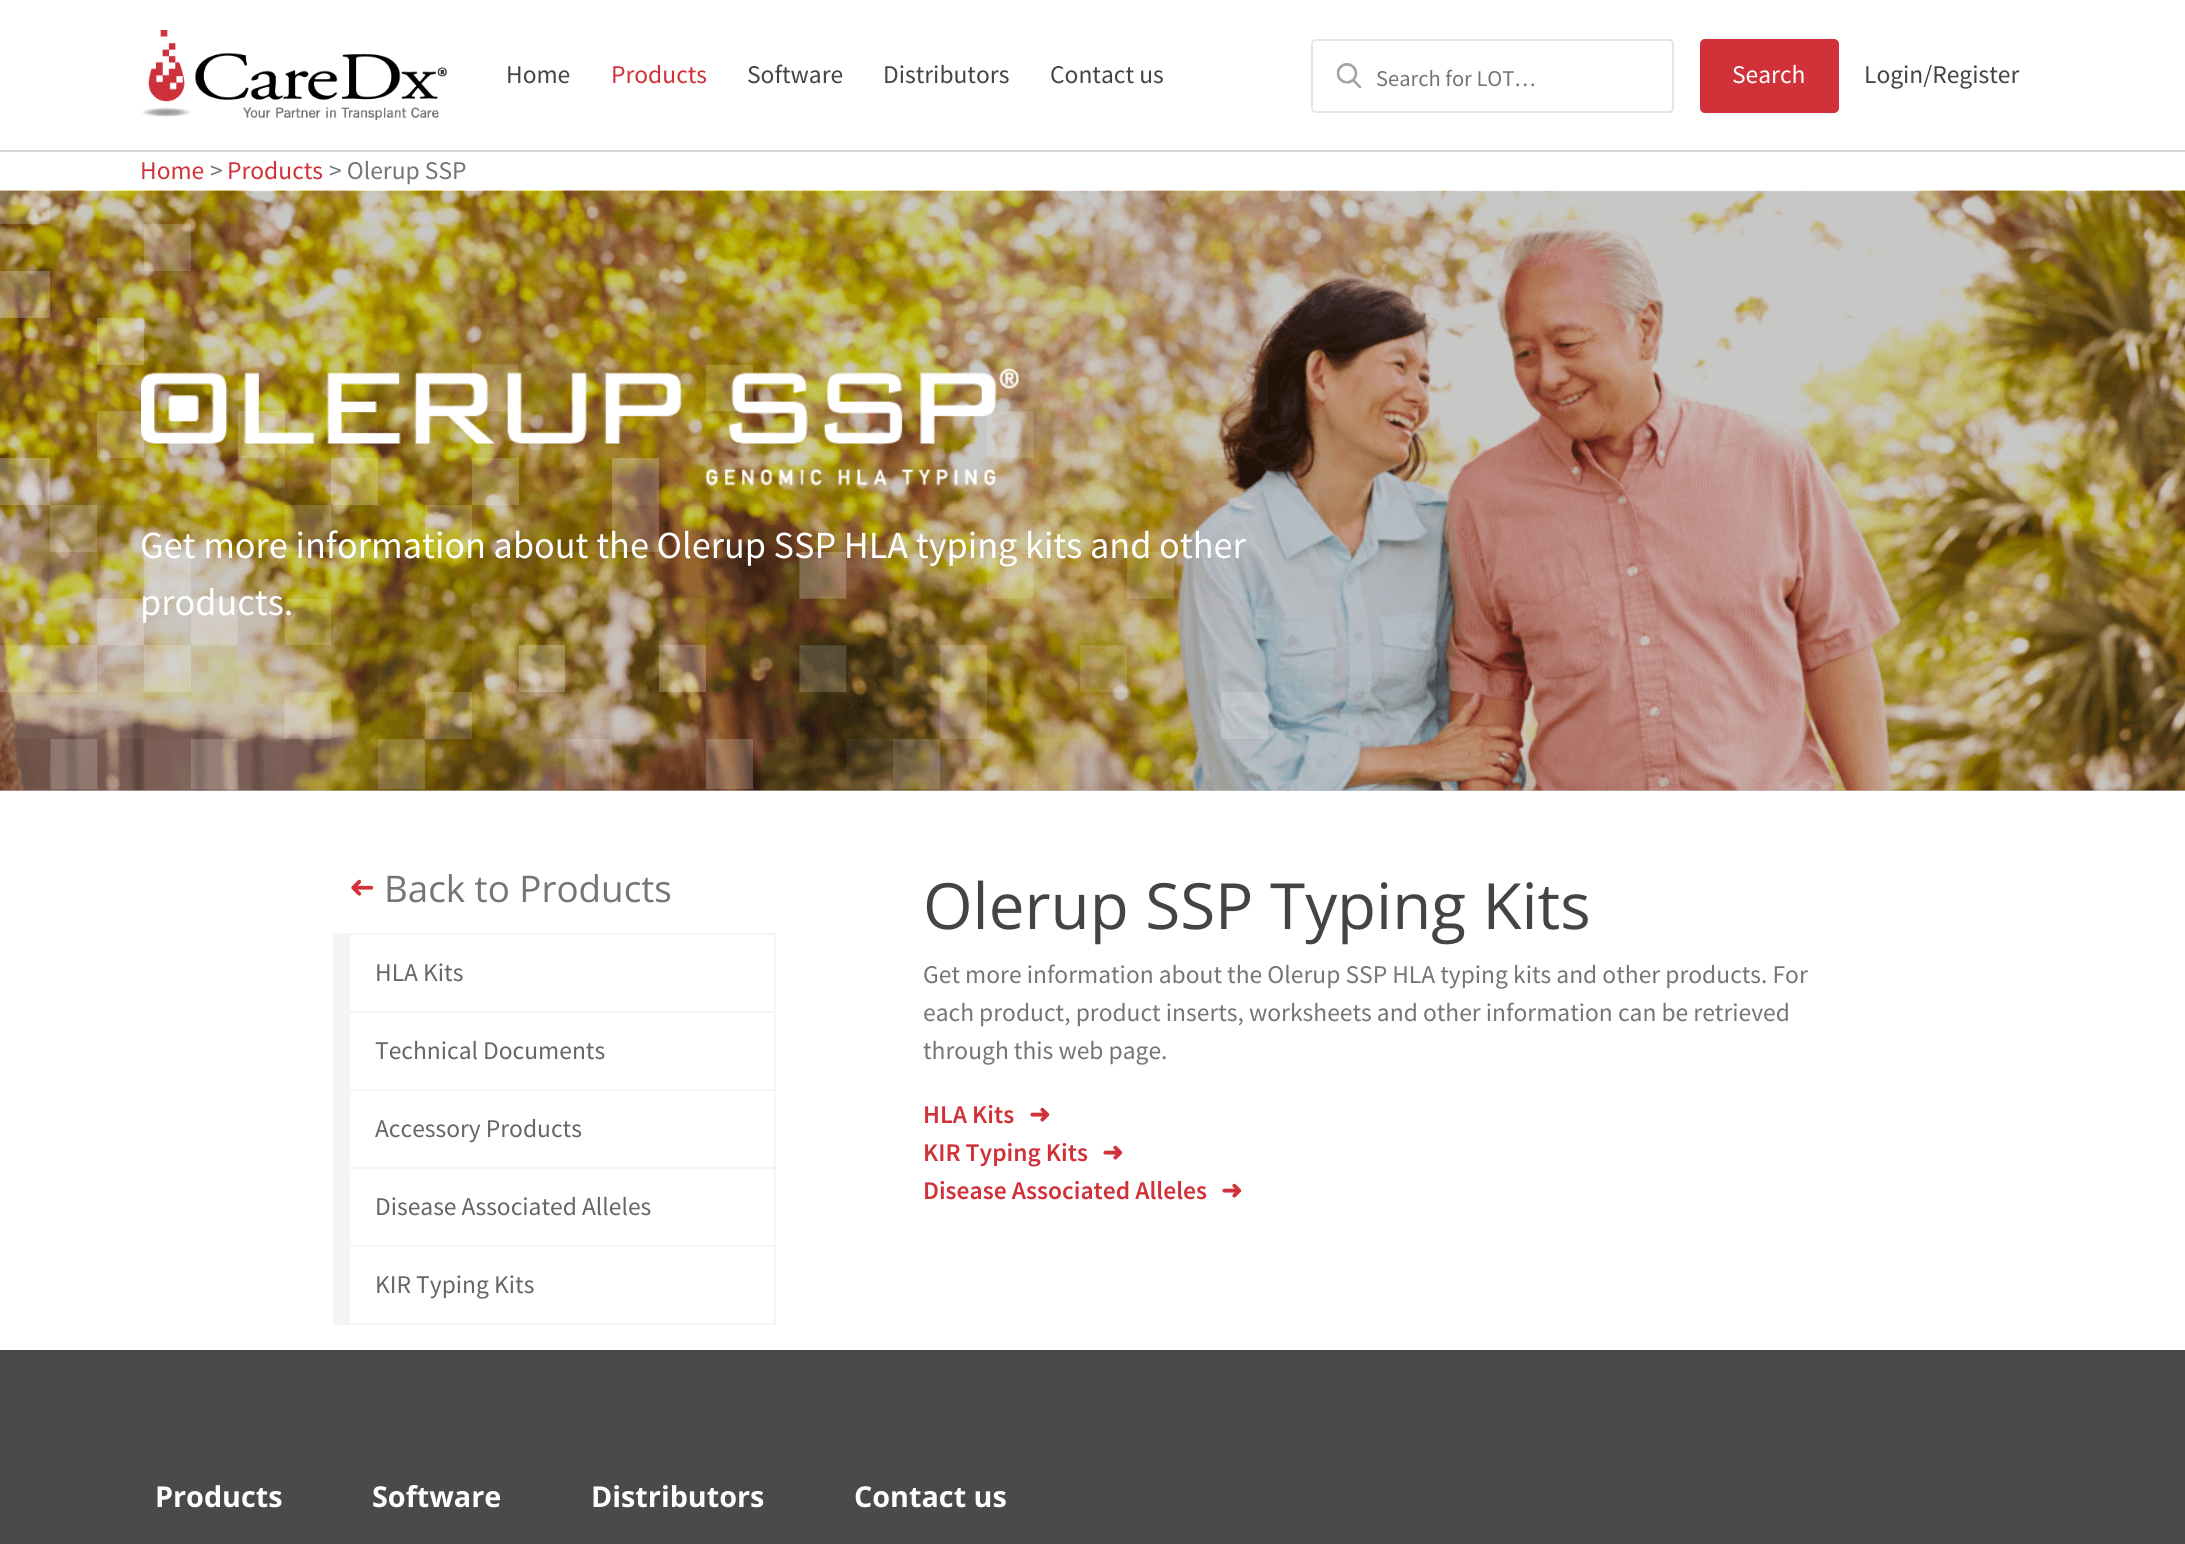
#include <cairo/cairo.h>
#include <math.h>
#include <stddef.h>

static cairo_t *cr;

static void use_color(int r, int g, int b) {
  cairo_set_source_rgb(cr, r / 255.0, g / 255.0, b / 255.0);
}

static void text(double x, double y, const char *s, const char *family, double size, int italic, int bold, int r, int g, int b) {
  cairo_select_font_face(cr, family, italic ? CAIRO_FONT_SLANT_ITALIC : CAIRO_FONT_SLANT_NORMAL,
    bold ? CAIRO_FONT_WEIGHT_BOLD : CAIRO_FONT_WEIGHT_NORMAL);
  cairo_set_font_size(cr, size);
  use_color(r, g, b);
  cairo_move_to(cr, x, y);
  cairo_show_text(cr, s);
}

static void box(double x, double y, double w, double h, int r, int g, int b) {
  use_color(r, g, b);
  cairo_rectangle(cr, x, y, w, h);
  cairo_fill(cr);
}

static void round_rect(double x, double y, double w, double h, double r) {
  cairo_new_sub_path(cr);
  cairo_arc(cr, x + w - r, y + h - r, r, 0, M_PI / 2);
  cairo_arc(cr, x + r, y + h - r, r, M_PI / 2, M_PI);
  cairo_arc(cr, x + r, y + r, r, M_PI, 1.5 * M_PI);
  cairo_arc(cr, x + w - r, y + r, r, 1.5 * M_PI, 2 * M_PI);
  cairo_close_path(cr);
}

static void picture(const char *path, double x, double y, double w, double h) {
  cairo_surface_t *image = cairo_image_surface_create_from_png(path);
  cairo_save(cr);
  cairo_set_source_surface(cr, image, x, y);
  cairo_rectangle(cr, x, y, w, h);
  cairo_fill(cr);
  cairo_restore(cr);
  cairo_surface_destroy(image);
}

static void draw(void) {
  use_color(255, 255, 255);
  cairo_paint(cr);
  box(0, 790, 2185, 1, 201, 201, 201);
  box(0, 150, 2185, 2, 216, 216, 216);
  picture("img_01.png", 142, 30, 305, 90);
  round_rect(1312, 40, 361, 72, 4);
  use_color(229, 229, 229);
  cairo_stroke(cr);
  picture("img_02.png", 1336, 63, 26, 26);
  use_color(209, 49, 56);
  round_rect(1700, 39, 139, 74, 5);
  cairo_fill(cr);
  picture("img_04.png", 0, 190, 2185, 601);
  box(333, 933, 443, 392, 245, 245, 245);
  box(350, 935, 424, 76, 255, 255, 255);
  box(350, 1013, 424, 76, 255, 255, 255);
  box(350, 1091, 424, 76, 255, 255, 255);
  box(350, 1169, 424, 76, 255, 255, 255);
  box(350, 1247, 424, 76, 255, 255, 255);
  box(0, 1350, 2185, 194, 74, 74, 74);
  text(506, 83, "Home", "Source Sans Pro", 25.5, 0, 0, 68, 68, 68);
  text(611, 83, "Products", "Source Sans Pro", 25.5, 0, 0, 209, 49, 56);
  text(747, 83, "Software", "Source Sans Pro", 25.5, 0, 0, 68, 68, 68);
  text(883, 83, "Distributors", "Source Sans Pro", 25.5, 0, 0, 68, 68, 68);
  text(1050, 83, "Contact us", "Source Sans Pro", 25.5, 0, 0, 68, 68, 68);
  text(1376, 86, "Search for LOT…", "Source Sans Pro", 22.5, 0, 0, 117, 117, 117);
  text(1732, 83, "Search", "Source Sans Pro", 25.5, 0, 0, 255, 255, 255);
  text(1864, 83, "Login/Register", "Source Sans Pro", 25.5, 0, 0, 68, 68, 68);
  text(140, 179, "Home", "Source Sans Pro", 25.5, 0, 0, 209, 49, 56);
  text(210, 179, ">", "Source Sans Pro", 25.5, 0, 0, 117, 117, 117);
  text(227, 179, "Products", "Source Sans Pro", 25.5, 0, 0, 209, 49, 56);
  text(329, 179, "> Olerup SSP", "Source Sans Pro", 25.5, 0, 0, 117, 117, 117);
  picture("img_03.png", 0, 162, 1268, 628);
  picture("img_05.png", 141, 367, 878, 119);
  text(140, 558, "Get more information about the Olerup SSP HLA typing kits and other", "Source Sans Pro", 38.25, 0, 0, 255, 255, 255);
  text(140, 615, "products.", "Source Sans Pro", 38.25, 0, 0, 255, 255, 255);
  cairo_save(cr);
  cairo_translate(cr, 375, 878);
  cairo_rotate(cr, 180 * M_PI / 180);
  text(0, 0, "➜", "DejaVu Sans", 31, 0, 0, 209, 49, 56);
  cairo_restore(cr);
  text(384, 902, "Back to Products", "Open Sans", 36.75, 0, 0, 117, 117, 117);
  text(375, 981, "HLA Kits", "Source Sans Pro", 25.5, 0, 0, 102, 102, 102);
  text(375, 1059, "Technical Documents", "Source Sans Pro", 25.5, 0, 0, 102, 102, 102);
  text(375, 1137, "Accessory Products", "Source Sans Pro", 25.5, 0, 0, 102, 102, 102);
  text(375, 1215, "Disease Associated Alleles", "Source Sans Pro", 25.5, 0, 0, 102, 102, 102);
  text(375, 1293, "KIR Typing Kits", "Source Sans Pro", 25.5, 0, 0, 102, 102, 102);
  text(923, 929, "Olerup SSP Typing Kits", "Open Sans", 63.75, 0, 0, 68, 68, 68);
  text(923, 983, "Get more information about the Olerup SSP HLA typing kits and other products. For", "Source Sans Pro", 25.5, 0, 0, 117, 117, 117);
  text(923, 1021, "each product, product inserts, worksheets and other information can be retrieved", "Source Sans Pro", 25.5, 0, 0, 117, 117, 117);
  text(923, 1059, "through this web page.", "Source Sans Pro", 25.5, 0, 0, 117, 117, 117);
  text(923, 1123, "HLA Kits", "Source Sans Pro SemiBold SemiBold", 25.5, 0, 0, 209, 49, 56);
  text(1029, 1123, "➜", "DejaVu Sans", 25.5, 0, 1, 209, 49, 56);
  text(923, 1161, "KIR Typing Kits", "Source Sans Pro SemiBold SemiBold", 25.5, 0, 0, 209, 49, 56);
  text(1102, 1161, "➜", "DejaVu Sans", 25.5, 0, 1, 209, 49, 56);
  text(923, 1199, "Disease Associated Alleles", "Source Sans Pro SemiBold SemiBold", 25.5, 0, 0, 209, 49, 56);
  text(1221, 1199, "➜", "DejaVu Sans", 25.5, 0, 1, 209, 49, 56);
  text(155, 1507, "Products", "Open Sans", 28.75, 0, 1, 255, 255, 255);
  text(372, 1507, "Software", "Open Sans", 28.75, 0, 1, 255, 255, 255);
  text(591, 1507, "Distributors", "Open Sans", 28.75, 0, 1, 255, 255, 255);
  text(854, 1507, "Contact us", "Open Sans", 28.75, 0, 1, 255, 255, 255);
}

int main(void) {
  cairo_surface_t *surface = cairo_image_surface_create(CAIRO_FORMAT_RGB24, 2185, 1544);
  cr = cairo_create(surface);
  cairo_font_options_t *options = cairo_font_options_create();
  cairo_font_options_set_hint_metrics(options, CAIRO_HINT_METRICS_OFF);
  cairo_font_options_set_hint_style(options, CAIRO_HINT_STYLE_NONE);
  cairo_set_font_options(cr, options);
  cairo_set_miter_limit(cr, 4);
  draw();
  cairo_surface_write_to_png(surface, "out.png");
  cairo_font_options_destroy(options);
  cairo_destroy(cr);
  cairo_surface_destroy(surface);
  return 0;
}
